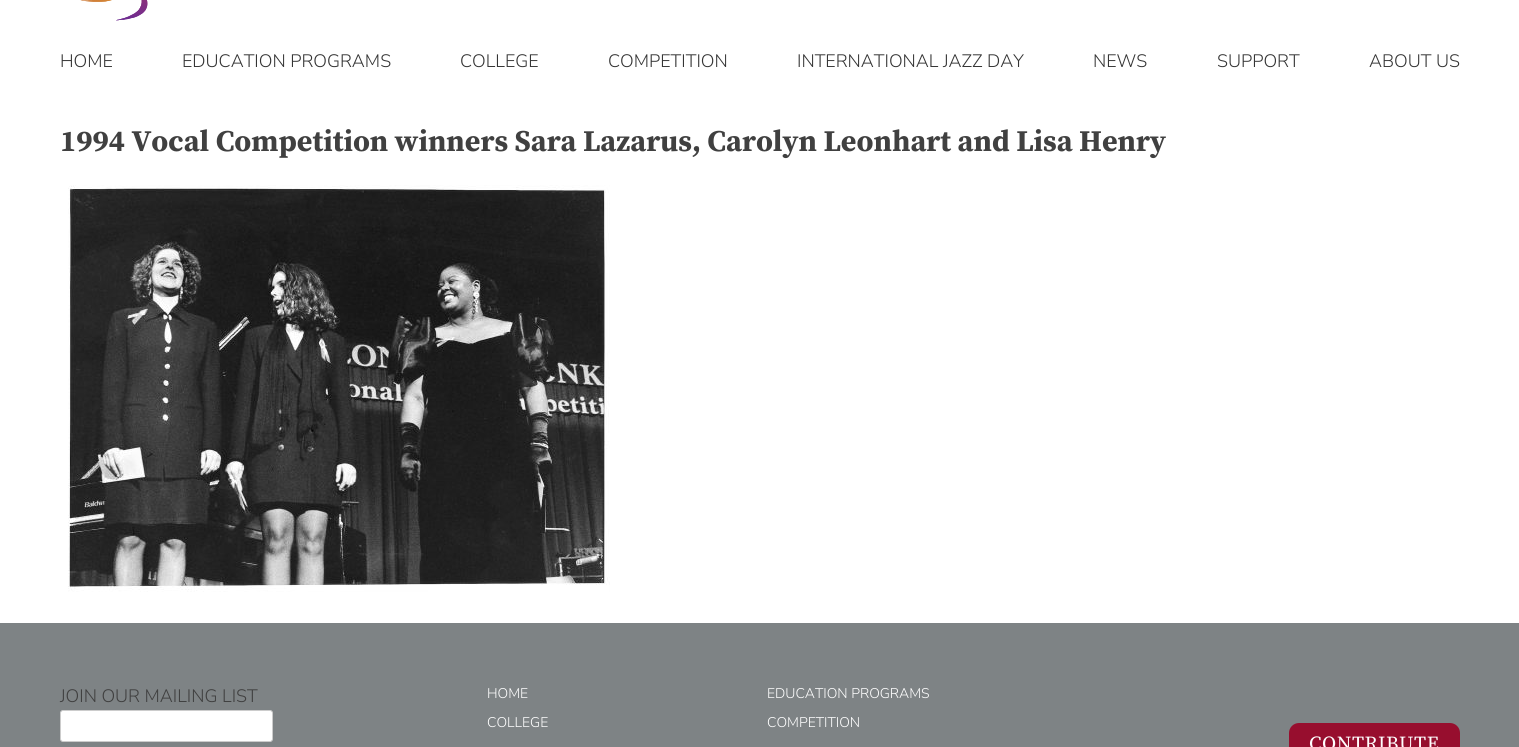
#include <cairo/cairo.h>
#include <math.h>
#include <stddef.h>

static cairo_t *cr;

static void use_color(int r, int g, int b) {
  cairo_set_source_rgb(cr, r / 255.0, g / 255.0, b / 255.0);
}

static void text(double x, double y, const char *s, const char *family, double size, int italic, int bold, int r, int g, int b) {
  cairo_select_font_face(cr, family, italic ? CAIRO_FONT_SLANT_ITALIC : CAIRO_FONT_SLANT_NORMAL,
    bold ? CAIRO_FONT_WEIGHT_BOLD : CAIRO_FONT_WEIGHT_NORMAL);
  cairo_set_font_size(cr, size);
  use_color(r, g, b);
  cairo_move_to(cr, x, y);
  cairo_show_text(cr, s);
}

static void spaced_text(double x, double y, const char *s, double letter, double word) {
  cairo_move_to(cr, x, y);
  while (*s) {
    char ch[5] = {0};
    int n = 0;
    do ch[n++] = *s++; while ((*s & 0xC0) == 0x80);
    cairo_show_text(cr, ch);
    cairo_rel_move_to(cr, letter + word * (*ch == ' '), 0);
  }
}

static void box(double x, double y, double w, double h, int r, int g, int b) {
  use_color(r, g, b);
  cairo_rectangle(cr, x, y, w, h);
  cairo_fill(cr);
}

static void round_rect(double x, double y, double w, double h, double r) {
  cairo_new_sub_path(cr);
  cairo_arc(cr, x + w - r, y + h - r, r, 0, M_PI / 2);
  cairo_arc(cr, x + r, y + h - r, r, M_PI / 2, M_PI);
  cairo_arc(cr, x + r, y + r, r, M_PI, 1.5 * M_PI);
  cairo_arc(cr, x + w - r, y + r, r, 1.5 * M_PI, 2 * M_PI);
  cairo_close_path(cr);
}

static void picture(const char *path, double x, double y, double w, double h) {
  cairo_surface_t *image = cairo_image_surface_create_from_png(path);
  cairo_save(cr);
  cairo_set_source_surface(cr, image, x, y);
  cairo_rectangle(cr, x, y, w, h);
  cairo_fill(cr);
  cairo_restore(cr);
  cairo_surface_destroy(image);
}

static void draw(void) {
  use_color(255, 255, 255);
  cairo_paint(cr);
  picture("img_01.png", 80, 0, 68, 21);
  picture("img_02.png", 68, 185, 542, 407);
  box(0, 623, 1519, 124, 126, 131, 133);
  use_color(255, 255, 255);
  round_rect(60.5, 710.5, 212, 31, 2.5);
  cairo_fill_preserve(cr);
  use_color(204, 204, 204);
  cairo_set_line_width(cr, 1);
  cairo_stroke(cr);
  use_color(151, 14, 46);
  round_rect(1289, 723, 171, 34, 10);
  cairo_fill(cr);
  text(60, 67, "HOME", "Nunito Sans Light", 18, 0, 0, 52, 52, 52);
  text(182, 67, "EDUCATION PROGRAMS", "Nunito Sans Light", 18, 0, 0, 52, 52, 52);
  text(460, 67, "COLLEGE", "Nunito Sans Light", 18, 0, 0, 52, 52, 52);
  text(608, 67, "COMPETITION", "Nunito Sans Light", 18, 0, 0, 52, 52, 52);
  text(797, 67, "INTERNATIONAL JAZZ DAY", "Nunito Sans Light", 18, 0, 0, 52, 52, 52);
  text(1093, 67, "NEWS", "Nunito Sans Light", 18, 0, 0, 52, 52, 52);
  text(1217, 67, "SUPPORT", "Nunito Sans Light", 18, 0, 0, 52, 52, 52);
  text(1369, 67, "ABOUT US", "Nunito Sans Light", 18, 0, 0, 52, 52, 52);
  text(60, 151, "1994 Vocal Competition winners Sara Lazarus, Carolyn Leonhart and Lisa Henry", "Source Serif Pro", 30, 0, 1, 64, 64, 64);
  text(60, 702, "JOIN OUR MAILING LIST", "Nunito Sans Light", 18, 0, 0, 64, 64, 64);
  text(487, 698, "HOME", "Nunito Sans Light", 14, 0, 0, 255, 255, 255);
  text(767, 698, "EDUCATION PROGRAMS", "Nunito Sans Light", 14, 0, 0, 255, 255, 255);
  text(487, 727, "COLLEGE", "Nunito Sans Light", 14, 0, 0, 255, 255, 255);
  text(767, 727, "COMPETITION", "Nunito Sans Light", 14, 0, 0, 255, 255, 255);
  cairo_select_font_face(cr, "Source Serif Pro", CAIRO_FONT_SLANT_NORMAL, CAIRO_FONT_WEIGHT_NORMAL);
  cairo_set_font_size(cr, 20);
  spaced_text(1309, 750, "CONTRIBUTE", 0.5, 0);
}

int main(void) {
  cairo_surface_t *surface = cairo_image_surface_create(CAIRO_FORMAT_RGB24, 1519, 747);
  cr = cairo_create(surface);
  cairo_font_options_t *options = cairo_font_options_create();
  cairo_font_options_set_hint_metrics(options, CAIRO_HINT_METRICS_OFF);
  cairo_font_options_set_hint_style(options, CAIRO_HINT_STYLE_NONE);
  cairo_set_font_options(cr, options);
  cairo_set_miter_limit(cr, 4);
  draw();
  cairo_surface_write_to_png(surface, "out.png");
  cairo_font_options_destroy(options);
  cairo_destroy(cr);
  cairo_surface_destroy(surface);
  return 0;
}
